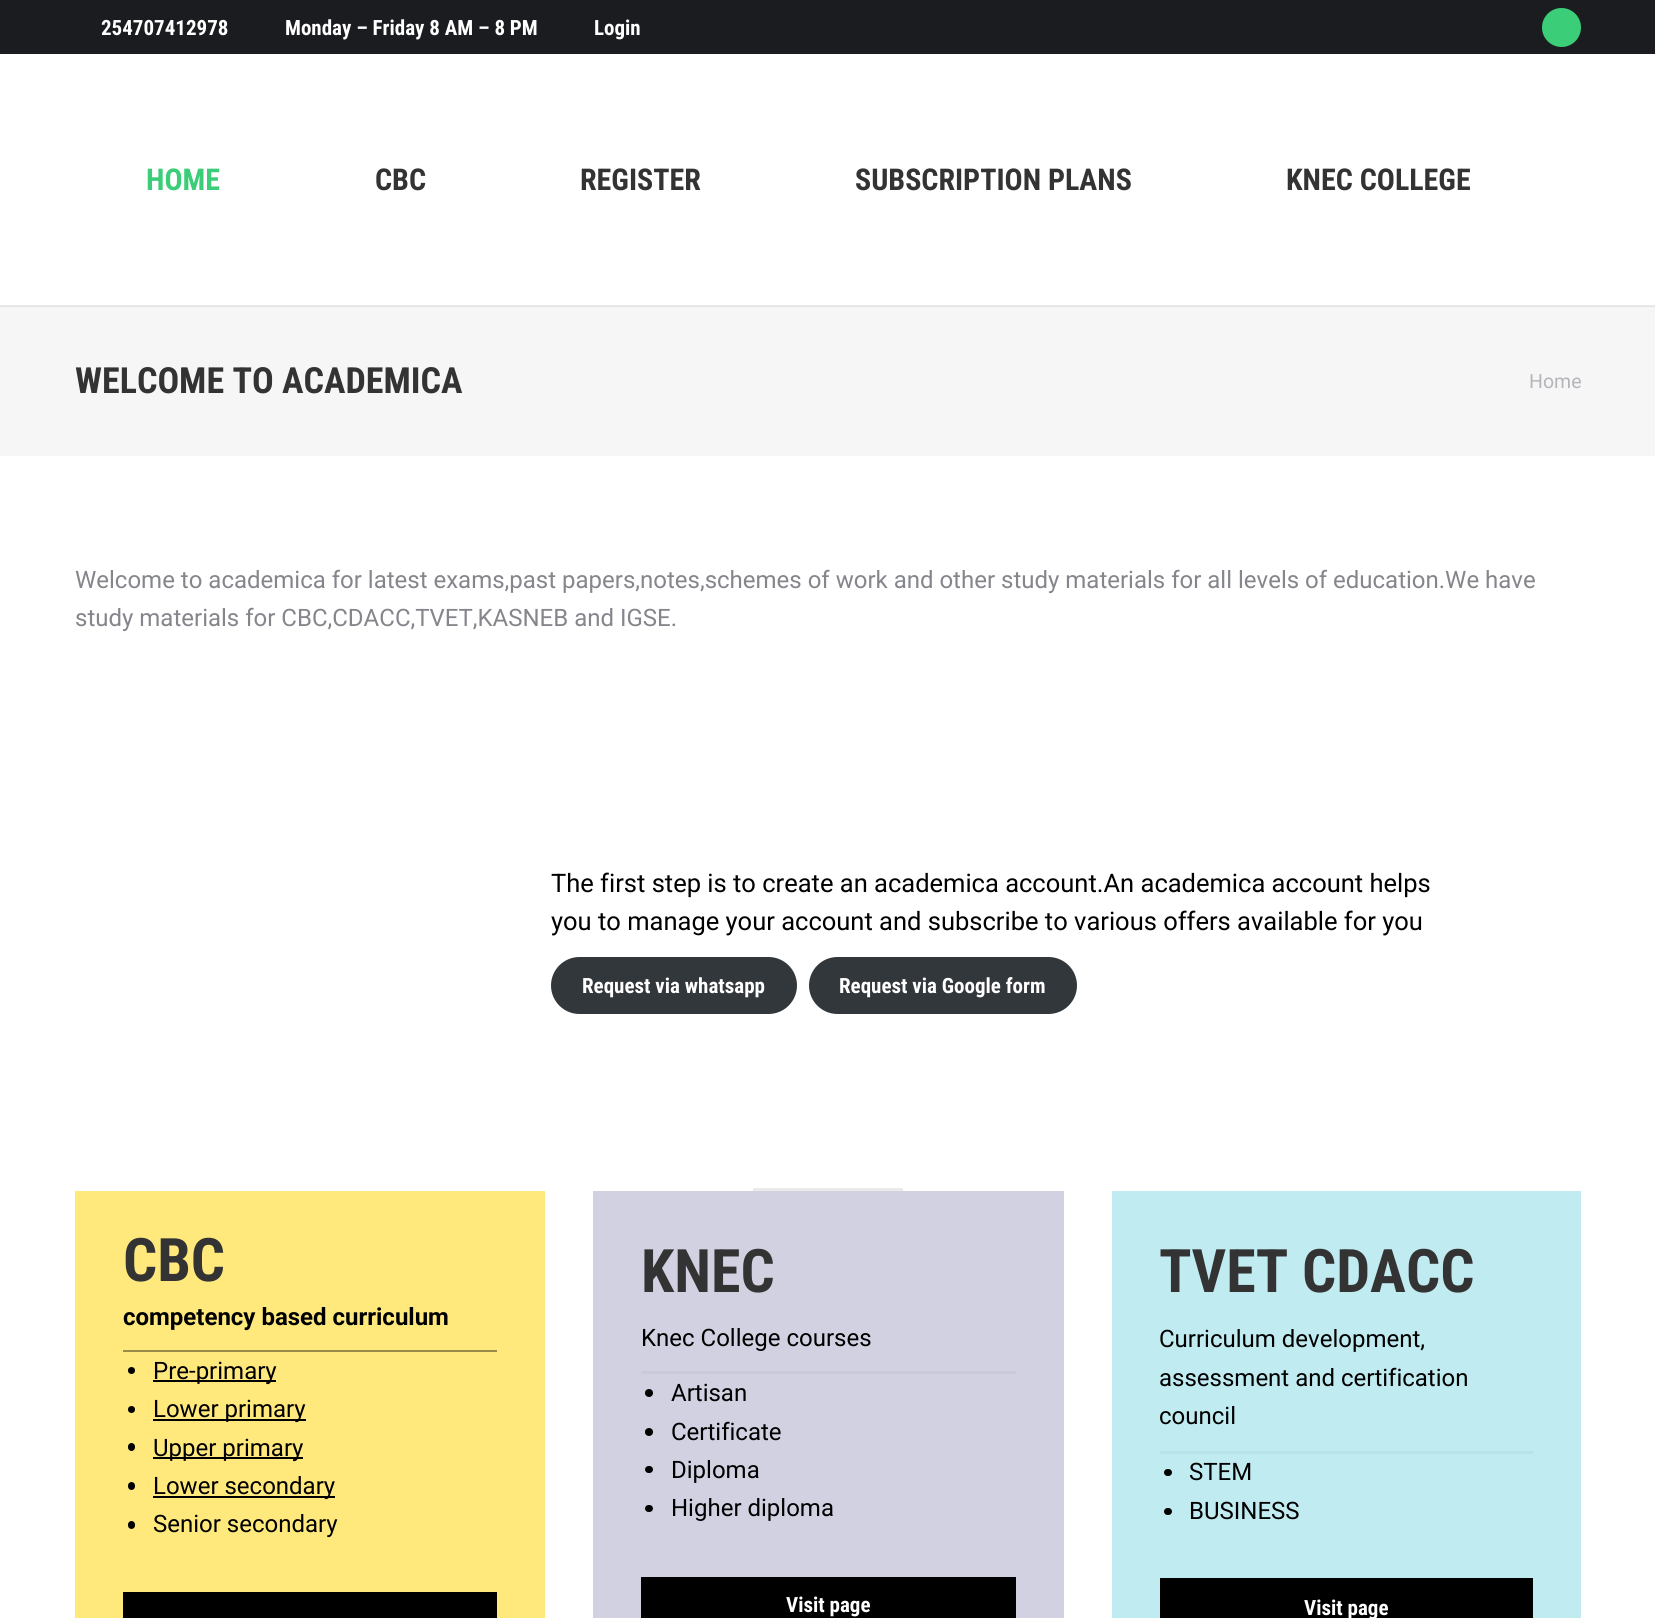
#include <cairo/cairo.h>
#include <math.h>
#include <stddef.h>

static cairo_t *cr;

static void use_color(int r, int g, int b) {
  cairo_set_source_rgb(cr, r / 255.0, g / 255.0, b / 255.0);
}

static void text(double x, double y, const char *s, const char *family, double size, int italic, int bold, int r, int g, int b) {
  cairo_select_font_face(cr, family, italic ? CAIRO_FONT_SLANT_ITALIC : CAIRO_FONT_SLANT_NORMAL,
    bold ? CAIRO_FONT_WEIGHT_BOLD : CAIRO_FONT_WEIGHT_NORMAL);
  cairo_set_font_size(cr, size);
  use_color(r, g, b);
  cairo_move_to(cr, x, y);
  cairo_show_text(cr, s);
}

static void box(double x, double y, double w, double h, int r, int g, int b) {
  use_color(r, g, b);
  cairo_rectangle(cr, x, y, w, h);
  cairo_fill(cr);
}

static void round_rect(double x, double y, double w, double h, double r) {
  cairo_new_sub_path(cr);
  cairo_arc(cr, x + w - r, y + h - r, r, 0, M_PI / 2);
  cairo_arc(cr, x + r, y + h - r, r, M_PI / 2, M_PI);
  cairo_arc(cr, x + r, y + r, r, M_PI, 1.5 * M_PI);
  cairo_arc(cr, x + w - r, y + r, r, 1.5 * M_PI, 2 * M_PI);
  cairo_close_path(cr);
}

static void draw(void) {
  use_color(255, 255, 255);
  cairo_paint(cr);
  box(0, 305, 1655, 1, 235, 235, 235);
  box(0, 0, 1655, 54, 26, 28, 32);
  use_color(59, 205, 119);
  cairo_arc(cr, 1561.5, 27.5, 19.5, 0, 2 * M_PI);
  cairo_fill(cr);
  box(0, 307, 1655, 149, 246, 246, 246);
  box(0, 306, 1655, 1, 226, 226, 226);
  use_color(50, 55, 60);
  round_rect(551, 957, 246, 57, 28.5);
  cairo_fill(cr);
  round_rect(809, 957, 268, 57, 28.5);
  cairo_fill(cr);
  box(753, 1188, 150, 3, 235, 235, 235);
  box(75, 1191, 470, 427, 255, 233, 125);
  box(123, 1350, 374, 2, 153, 140, 75);
  use_color(0, 0, 0);
  cairo_arc(cr, 131.5, 1370.5, 3.5, 0, 2 * M_PI);
  cairo_fill(cr);
  box(153, 1380, 123, 2, 0, 0, 0);
  cairo_arc(cr, 131.5, 1409.5, 3.5, 0, 2 * M_PI);
  cairo_fill(cr);
  box(153, 1419, 153, 2, 0, 0, 0);
  round_rect(128, 1443, 7, 8, 3.5);
  cairo_fill(cr);
  box(153, 1457, 150, 2, 0, 0, 0);
  round_rect(128, 1482, 7, 8, 3.5);
  cairo_fill(cr);
  box(153, 1496, 182, 2, 0, 0, 0);
  round_rect(128, 1521, 7, 8, 3.5);
  cairo_fill(cr);
  box(123, 1592, 374, 26, 0, 0, 0);
  box(593, 1191, 471, 427, 209, 209, 225);
  box(641, 1371, 375, 3, 202, 202, 218);
  use_color(0, 0, 0);
  cairo_arc(cr, 649, 1393, 4, 0, 2 * M_PI);
  cairo_fill(cr);
  cairo_arc(cr, 649, 1432, 4, 0, 2 * M_PI);
  cairo_fill(cr);
  round_rect(645, 1466, 8, 7, 3.5);
  cairo_fill(cr);
  round_rect(645, 1505, 8, 7, 3.5);
  cairo_fill(cr);
  box(641, 1577, 375, 41, 0, 0, 0);
  box(1112, 1191, 469, 427, 192, 235, 241);
  box(1160, 1451, 373, 3, 186, 227, 233);
  use_color(0, 0, 0);
  round_rect(1164, 1469, 8, 7, 3.5);
  cairo_fill(cr);
  round_rect(1164, 1508, 8, 7, 3.5);
  cairo_fill(cr);
  box(1160, 1578, 373, 40, 0, 0, 0);
  text(101, 35, "254707412978", "Roboto Condensed", 21, 0, 1, 255, 255, 255);
  text(285, 35, "Monday – Friday 8 AM – 8 PM", "Roboto Condensed", 21, 0, 1, 255, 255, 255);
  text(594, 35, "Login", "Roboto Condensed", 21, 0, 1, 255, 255, 255);
  text(146, 190, "HOME", "Roboto Condensed", 30, 0, 1, 59, 205, 119);
  text(375, 190, "CBC", "Roboto Condensed", 30, 0, 1, 51, 51, 51);
  text(580, 190, "REGISTER", "Roboto Condensed", 30, 0, 1, 51, 51, 51);
  text(855, 190, "SUBSCRIPTION PLANS", "Roboto Condensed", 30, 0, 1, 51, 51, 51);
  text(1286, 190, "KNEC COLLEGE", "Roboto Condensed", 30, 0, 1, 51, 51, 51);
  text(75, 393, "WELCOME TO ACADEMICA", "Roboto Condensed", 36, 0, 1, 51, 51, 51);
  text(1529, 388, "Home", "Roboto", 19.5, 0, 0, 180, 181, 187);
  text(75, 588, "Welcome to academica for latest exams,past papers,notes,schemes of work and other study materials for all levels of education.We have", "Roboto", 24, 0, 0, 133, 134, 140);
  text(75, 626, "study materials for CBC,CDACC,TVET,KASNEB and IGSE.", "Roboto", 24, 0, 0, 133, 134, 140);
  text(551, 892, "The first step is to create an academica account.An academica account helps", "Roboto", 25.5, 0, 0, 0, 0, 0);
  text(551, 930, "you to manage your account and subscribe to various offers available for you", "Roboto", 25.5, 0, 0, 0, 0, 0);
  text(582, 993, "Request via whatsapp", "Roboto Condensed", 21, 0, 1, 255, 255, 255);
  text(839, 993, "Request via Google form", "Roboto Condensed", 21, 0, 1, 255, 255, 255);
  text(123, 1281, "CBC", "Roboto Condensed", 60, 0, 1, 51, 51, 51);
  text(123, 1325, "competency based curriculum", "Roboto", 24, 0, 1, 0, 0, 0);
  text(153, 1379, "Pre-primary", "Roboto", 24, 0, 0, 0, 0, 0);
  text(153, 1417, "Lower primary", "Roboto", 24, 0, 0, 0, 0, 0);
  text(153, 1456, "Upper primary", "Roboto", 24, 0, 0, 0, 0, 0);
  text(153, 1494, "Lower secondary", "Roboto", 24, 0, 0, 0, 0, 0);
  text(153, 1532, "Senior secondary", "Roboto", 24, 0, 0, 0, 0, 0);
  text(641, 1292, "KNEC", "Roboto Condensed", 60, 0, 1, 51, 51, 51);
  text(641, 1346, "Knec College courses", "Roboto", 24, 0, 0, 0, 0, 0);
  text(671, 1401, "Artisan", "Roboto", 24, 0, 0, 0, 0, 0);
  text(671, 1440, "Certificate", "Roboto", 24, 0, 0, 0, 0, 0);
  text(671, 1478, "Diploma", "Roboto", 24, 0, 0, 0, 0, 0);
  text(671, 1516, "Higher diploma", "Roboto", 24, 0, 0, 0, 0, 0);
  text(786, 1612, "Visit page", "Roboto Condensed", 21, 0, 1, 255, 255, 255);
  text(1159, 1292, "TVET CDACC", "Roboto Condensed", 60, 0, 1, 51, 51, 51);
  text(1159, 1347, "Curriculum development,", "Roboto", 24, 0, 0, 0, 0, 0);
  text(1159, 1386, "assessment and certification", "Roboto", 24, 0, 0, 0, 0, 0);
  text(1159, 1424, "council", "Roboto", 24, 0, 0, 0, 0, 0);
  text(1189, 1480, "STEM", "Roboto", 24, 0, 0, 0, 0, 0);
  text(1189, 1519, "BUSINESS", "Roboto", 24, 0, 0, 0, 0, 0);
  text(1304, 1615, "Visit page", "Roboto Condensed", 21, 0, 1, 255, 255, 255);
}

int main(void) {
  cairo_surface_t *surface = cairo_image_surface_create(CAIRO_FORMAT_RGB24, 1655, 1618);
  cr = cairo_create(surface);
  cairo_font_options_t *options = cairo_font_options_create();
  cairo_font_options_set_hint_metrics(options, CAIRO_HINT_METRICS_OFF);
  cairo_font_options_set_hint_style(options, CAIRO_HINT_STYLE_NONE);
  cairo_set_font_options(cr, options);
  cairo_set_miter_limit(cr, 4);
  draw();
  cairo_surface_write_to_png(surface, "out.png");
  cairo_font_options_destroy(options);
  cairo_destroy(cr);
  cairo_surface_destroy(surface);
  return 0;
}
